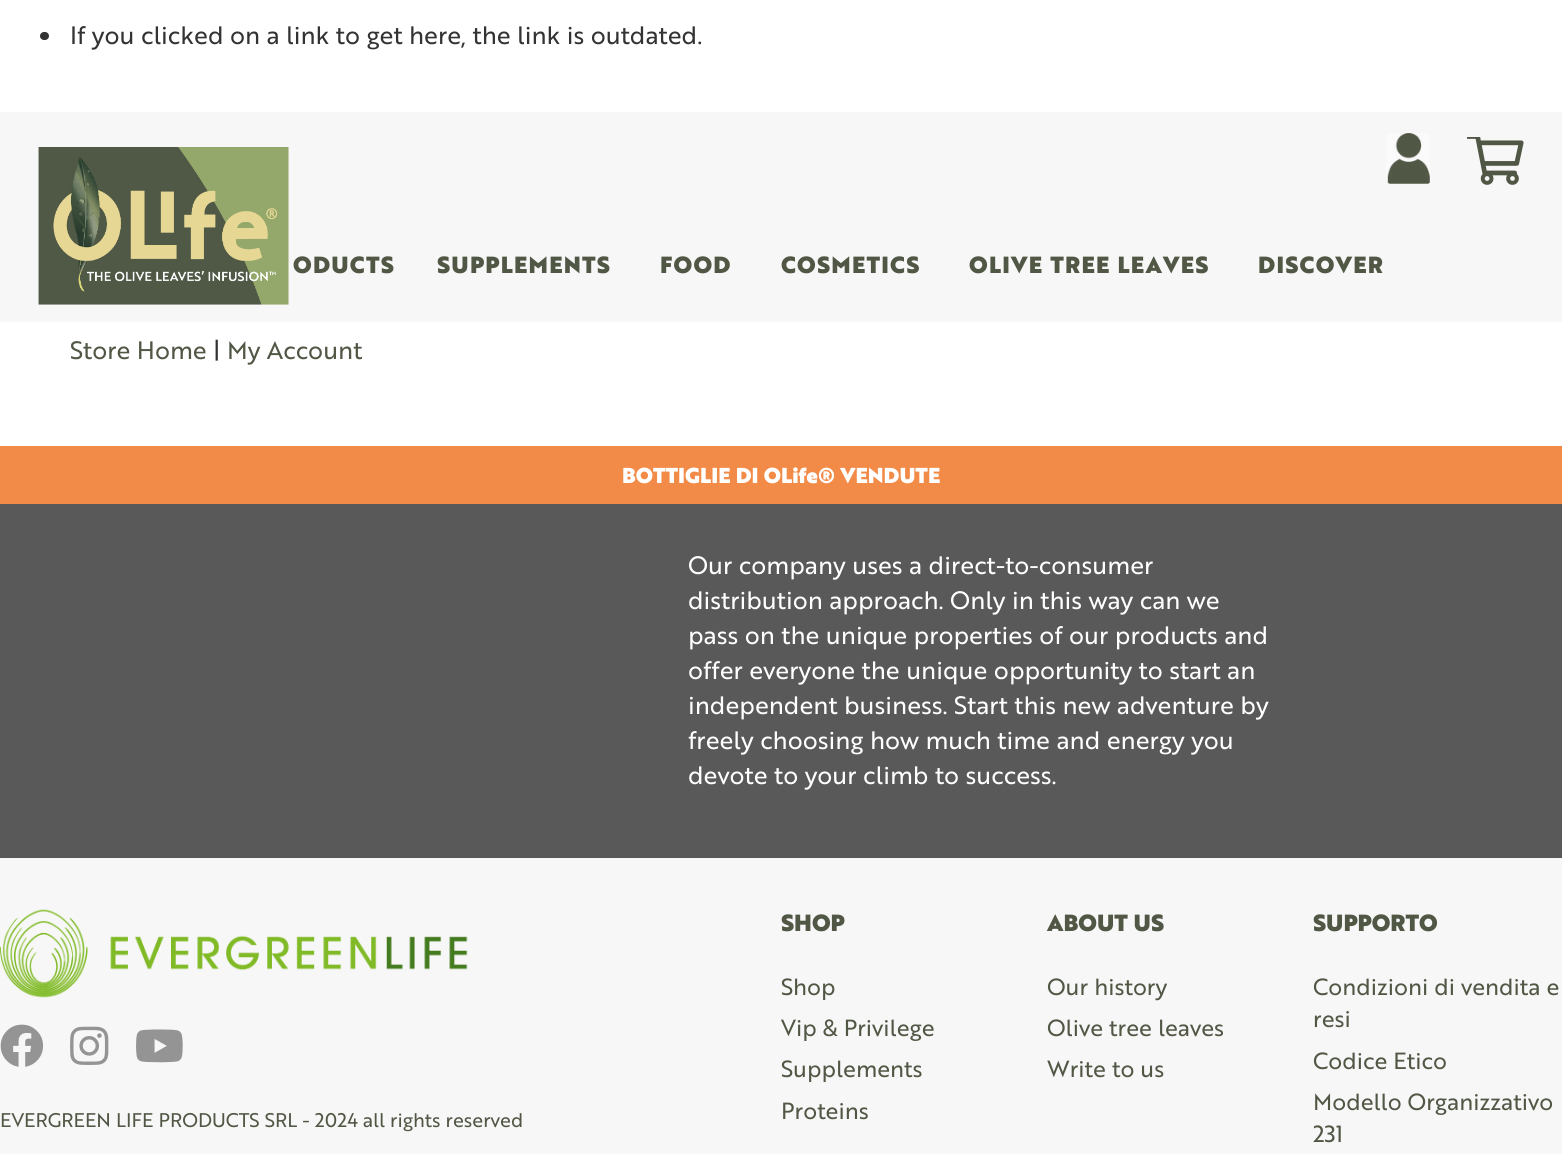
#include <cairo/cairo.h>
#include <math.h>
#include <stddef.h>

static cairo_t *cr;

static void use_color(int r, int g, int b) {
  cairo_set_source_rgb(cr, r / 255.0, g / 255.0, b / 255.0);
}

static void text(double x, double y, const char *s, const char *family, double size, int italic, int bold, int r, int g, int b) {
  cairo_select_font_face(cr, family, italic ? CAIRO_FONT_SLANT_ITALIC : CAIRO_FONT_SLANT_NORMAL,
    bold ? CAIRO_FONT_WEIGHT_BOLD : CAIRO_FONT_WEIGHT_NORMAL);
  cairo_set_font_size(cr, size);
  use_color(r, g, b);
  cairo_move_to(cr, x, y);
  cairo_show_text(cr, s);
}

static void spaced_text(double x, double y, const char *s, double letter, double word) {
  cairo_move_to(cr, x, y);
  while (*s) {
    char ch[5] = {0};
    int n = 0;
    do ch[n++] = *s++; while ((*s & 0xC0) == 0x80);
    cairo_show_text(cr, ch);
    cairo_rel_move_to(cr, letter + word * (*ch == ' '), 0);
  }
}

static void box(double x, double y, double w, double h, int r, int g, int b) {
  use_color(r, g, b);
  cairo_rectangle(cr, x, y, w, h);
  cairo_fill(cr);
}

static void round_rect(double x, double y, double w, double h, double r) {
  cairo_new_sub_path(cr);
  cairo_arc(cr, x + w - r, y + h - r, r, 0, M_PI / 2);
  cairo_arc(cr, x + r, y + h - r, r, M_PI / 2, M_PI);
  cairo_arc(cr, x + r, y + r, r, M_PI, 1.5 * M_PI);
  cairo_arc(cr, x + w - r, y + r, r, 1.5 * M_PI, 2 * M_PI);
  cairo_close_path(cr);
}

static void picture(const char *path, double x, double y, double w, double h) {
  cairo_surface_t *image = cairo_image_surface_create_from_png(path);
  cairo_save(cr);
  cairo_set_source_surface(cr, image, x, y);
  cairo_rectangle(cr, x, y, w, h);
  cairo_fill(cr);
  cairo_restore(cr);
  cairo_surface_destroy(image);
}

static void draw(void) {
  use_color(255, 255, 255);
  cairo_paint(cr);
  use_color(51, 51, 51);
  round_rect(40, 32, 9, 8, 4);
  cairo_fill(cr);
  box(0, 112, 1562, 210, 247, 247, 247);
  picture("img_01.png", 38, 147, 251, 158);
  box(1386, 133, 44, 51, 250, 250, 250);
  picture("img_02.png", 1387, 133, 43, 51);
  picture("img_03.png", 1467, 137, 57, 48);
  box(0, 446, 1562, 58, 242, 138, 72);
  box(0, 504, 1562, 354, 89, 89, 89);
  box(0, 858, 1562, 296, 247, 247, 247);
  picture("img_04.png", 0, 909, 468, 89);
  picture("img_05.png", 0, 1024, 44, 43);
  picture("img_06.png", 70, 1026, 39, 39);
  picture("img_07.png", 136, 1029, 47, 34);
  text(70, 44, "If you clicked on a link to get here, the link is outdated.", "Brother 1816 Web", 24.5, 0, 0, 51, 51, 51);
  text(70, 359, "Store Home", "Brother 1816 Web", 24.5, 0, 0, 81, 87, 69);
  text(213, 359, "|", "Brother 1816 Web", 24.5, 0, 0, 51, 51, 51);
  text(227, 359, "My Account", "Brother 1816 Web", 24.5, 0, 0, 81, 87, 69);
  cairo_select_font_face(cr, "Brother 1816 Web Black", CAIRO_FONT_SLANT_NORMAL, CAIRO_FONT_WEIGHT_NORMAL);
  cairo_set_font_size(cr, 22.75);
  spaced_text(293, 273, "ODUCTS", 1.25, 0);
  spaced_text(437, 273, "SUPPLEMENTS", 1.25, 0);
  spaced_text(660, 273, "FOOD", 1.25, 0);
  spaced_text(781, 273, "COSMETICS", 1.25, 0);
  spaced_text(969, 273, "OLIVE TREE LEAVES", 1.25, 0);
  spaced_text(1258, 273, "DISCOVER", 1.25, 0);
  text(622, 483, "BOTTIGLIE DI OLife® VENDUTE", "Brother 1816 Web Black", 21, 0, 0, 255, 255, 255);
  text(688, 574, "Our company uses a direct-to-consumer", "Brother 1816 Web", 24.5, 0, 0, 255, 255, 255);
  text(688, 609, "distribution approach. Only in this way can we", "Brother 1816 Web", 24.5, 0, 0, 255, 255, 255);
  text(688, 644, "pass on the unique properties of our products and", "Brother 1816 Web", 24.5, 0, 0, 255, 255, 255);
  text(688, 679, "offer everyone the unique opportunity to start an", "Brother 1816 Web", 24.5, 0, 0, 255, 255, 255);
  text(688, 714, "independent business. Start this new adventure by", "Brother 1816 Web", 24.5, 0, 0, 255, 255, 255);
  text(688, 749, "freely choosing how much time and energy you", "Brother 1816 Web", 24.5, 0, 0, 255, 255, 255);
  text(688, 784, "devote to your climb to success.", "Brother 1816 Web", 24.5, 0, 0, 255, 255, 255);
  text(0, 1127, "EVERGREEN LIFE PRODUCTS SRL - 2024 all rights reserved", "Brother 1816 Web", 19.25, 0, 0, 81, 87, 69);
  text(781, 931, "SHOP", "Brother 1816 Web Black", 22.75, 0, 0, 81, 87, 69);
  text(781, 995, "Shop", "Brother 1816 Web", 22.75, 0, 0, 81, 87, 69);
  text(781, 1036, "Vip & Privilege", "Brother 1816 Web", 22.75, 0, 0, 81, 87, 69);
  text(781, 1077, "Supplements", "Brother 1816 Web", 22.75, 0, 0, 81, 87, 69);
  text(781, 1119, "Proteins", "Brother 1816 Web", 22.75, 0, 0, 81, 87, 69);
  text(1047, 931, "ABOUT US", "Brother 1816 Web Black", 22.75, 0, 0, 81, 87, 69);
  text(1047, 995, "Our history", "Brother 1816 Web", 22.75, 0, 0, 81, 87, 69);
  text(1047, 1036, "Olive tree leaves", "Brother 1816 Web", 22.75, 0, 0, 81, 87, 69);
  text(1047, 1077, "Write to us", "Brother 1816 Web", 22.75, 0, 0, 81, 87, 69);
  text(1313, 931, "SUPPORTO", "Brother 1816 Web Black", 22.75, 0, 0, 81, 87, 69);
  text(1313, 995, "Condizioni di vendita e", "Brother 1816 Web", 22.75, 0, 0, 81, 87, 69);
  text(1313, 1027, "resi", "Brother 1816 Web", 22.75, 0, 0, 81, 87, 69);
  text(1313, 1069, "Codice Etico", "Brother 1816 Web", 22.75, 0, 0, 81, 87, 69);
  text(1313, 1110, "Modello Organizzativo", "Brother 1816 Web", 22.75, 0, 0, 81, 87, 69);
  text(1313, 1142, "231", "Brother 1816 Web", 22.75, 0, 0, 81, 87, 69);
}

int main(void) {
  cairo_surface_t *surface = cairo_image_surface_create(CAIRO_FORMAT_RGB24, 1562, 1154);
  cr = cairo_create(surface);
  cairo_font_options_t *options = cairo_font_options_create();
  cairo_font_options_set_hint_metrics(options, CAIRO_HINT_METRICS_OFF);
  cairo_font_options_set_hint_style(options, CAIRO_HINT_STYLE_NONE);
  cairo_set_font_options(cr, options);
  cairo_set_miter_limit(cr, 4);
  draw();
  cairo_surface_write_to_png(surface, "out.png");
  cairo_font_options_destroy(options);
  cairo_destroy(cr);
  cairo_surface_destroy(surface);
  return 0;
}
